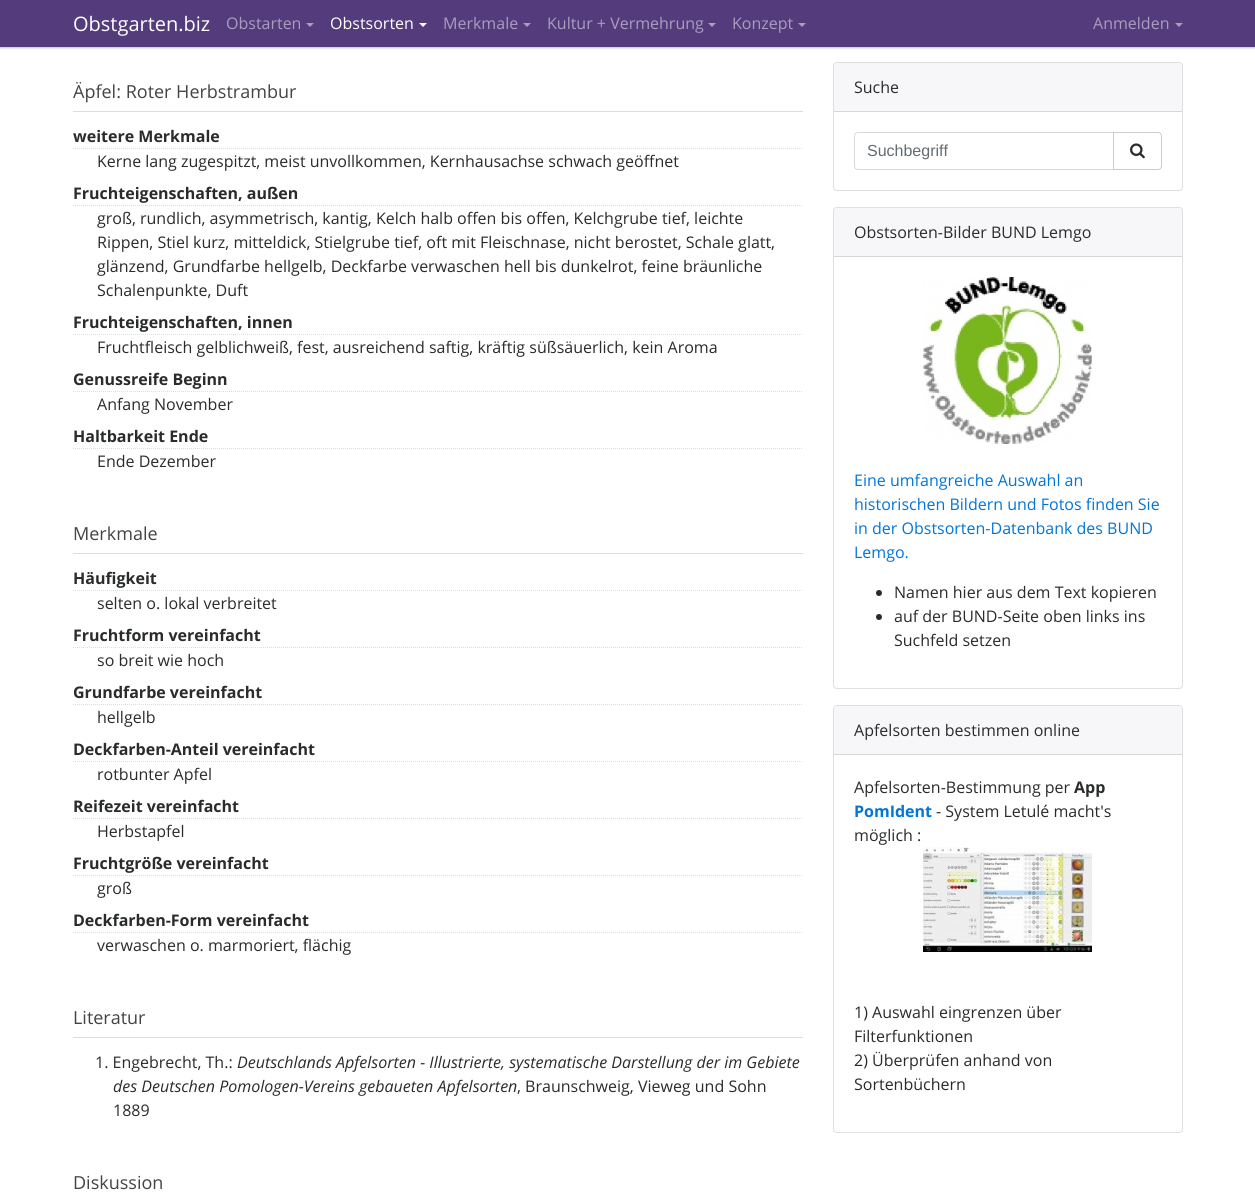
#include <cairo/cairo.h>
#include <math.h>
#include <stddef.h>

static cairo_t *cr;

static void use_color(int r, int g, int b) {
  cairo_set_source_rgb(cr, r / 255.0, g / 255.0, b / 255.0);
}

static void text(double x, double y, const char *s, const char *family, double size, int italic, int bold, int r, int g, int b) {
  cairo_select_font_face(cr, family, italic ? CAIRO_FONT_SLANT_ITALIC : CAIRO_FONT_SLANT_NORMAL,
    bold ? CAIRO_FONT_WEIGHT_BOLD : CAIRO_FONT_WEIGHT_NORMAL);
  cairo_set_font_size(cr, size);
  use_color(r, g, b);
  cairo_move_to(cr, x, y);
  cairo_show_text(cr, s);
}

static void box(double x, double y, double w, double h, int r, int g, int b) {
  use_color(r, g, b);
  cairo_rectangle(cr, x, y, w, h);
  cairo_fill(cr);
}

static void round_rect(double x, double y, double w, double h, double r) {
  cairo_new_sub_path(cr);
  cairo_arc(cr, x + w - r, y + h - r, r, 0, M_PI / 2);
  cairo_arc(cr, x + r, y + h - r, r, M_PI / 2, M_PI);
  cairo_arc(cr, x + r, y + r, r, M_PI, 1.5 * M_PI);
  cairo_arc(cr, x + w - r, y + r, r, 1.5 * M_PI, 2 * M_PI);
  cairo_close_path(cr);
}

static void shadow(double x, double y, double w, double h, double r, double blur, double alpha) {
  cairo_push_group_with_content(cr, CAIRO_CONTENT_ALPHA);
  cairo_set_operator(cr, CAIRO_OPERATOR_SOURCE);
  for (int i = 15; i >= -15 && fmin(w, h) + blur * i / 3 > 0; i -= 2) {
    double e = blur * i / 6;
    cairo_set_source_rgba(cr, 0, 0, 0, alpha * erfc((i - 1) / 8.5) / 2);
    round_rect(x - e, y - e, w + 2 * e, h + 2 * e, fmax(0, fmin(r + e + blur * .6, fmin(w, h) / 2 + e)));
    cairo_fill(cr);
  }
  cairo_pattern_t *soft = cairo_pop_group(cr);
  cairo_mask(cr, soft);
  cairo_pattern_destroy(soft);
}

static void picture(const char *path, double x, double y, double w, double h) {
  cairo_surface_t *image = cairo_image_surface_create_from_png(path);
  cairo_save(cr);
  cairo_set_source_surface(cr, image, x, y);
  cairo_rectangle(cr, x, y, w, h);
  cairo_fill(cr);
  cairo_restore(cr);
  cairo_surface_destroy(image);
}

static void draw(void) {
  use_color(255, 255, 255);
  cairo_paint(cr);
  use_color(0, 0, 0);
  shadow(-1, -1, 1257, 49, 0, 1, 0.25);
  box(0, 0, 1255, 47, 84, 59, 123);
  use_color(170, 157, 189);
  cairo_new_path(cr);
  cairo_move_to(cr, 306, 23);
  cairo_line_to(cr, 314, 23);
  cairo_line_to(cr, 310, 27);
  cairo_close_path(cr);
  cairo_fill(cr);
  use_color(255, 255, 255);
  cairo_new_path(cr);
  cairo_move_to(cr, 419, 23);
  cairo_line_to(cr, 427, 23);
  cairo_line_to(cr, 423, 27);
  cairo_close_path(cr);
  cairo_fill(cr);
  use_color(170, 157, 189);
  cairo_new_path(cr);
  cairo_move_to(cr, 523, 23);
  cairo_line_to(cr, 531, 23);
  cairo_line_to(cr, 527, 27);
  cairo_close_path(cr);
  cairo_fill(cr);
  cairo_new_path(cr);
  cairo_move_to(cr, 708, 23);
  cairo_line_to(cr, 716, 23);
  cairo_line_to(cr, 712, 27);
  cairo_close_path(cr);
  cairo_fill(cr);
  cairo_new_path(cr);
  cairo_move_to(cr, 798, 23);
  cairo_line_to(cr, 806, 23);
  cairo_line_to(cr, 802, 27);
  cairo_close_path(cr);
  cairo_fill(cr);
  cairo_new_path(cr);
  cairo_move_to(cr, 1175, 23);
  cairo_line_to(cr, 1183, 23);
  cairo_line_to(cr, 1179, 27);
  cairo_close_path(cr);
  cairo_fill(cr);
  box(73, 111, 730, 1, 221, 221, 221);
  cairo_new_path(cr);
  cairo_move_to(cr, 73, 148.5);
  cairo_line_to(cr, 803, 148.5);
  cairo_set_line_width(cr, 1);
  cairo_set_dash(cr, (double[]){1, 1}, 2, 0);
  cairo_stroke(cr);
  cairo_new_path(cr);
  cairo_move_to(cr, 73, 205.5);
  cairo_line_to(cr, 803, 205.5);
  cairo_stroke(cr);
  cairo_new_path(cr);
  cairo_move_to(cr, 73, 334.5);
  cairo_line_to(cr, 803, 334.5);
  cairo_stroke(cr);
  cairo_new_path(cr);
  cairo_move_to(cr, 73, 391.5);
  cairo_line_to(cr, 803, 391.5);
  cairo_stroke(cr);
  cairo_new_path(cr);
  cairo_move_to(cr, 73, 448.5);
  cairo_line_to(cr, 803, 448.5);
  cairo_stroke(cr);
  box(73, 553, 730, 1, 221, 221, 221);
  cairo_new_path(cr);
  cairo_move_to(cr, 73, 590.5);
  cairo_line_to(cr, 803, 590.5);
  cairo_stroke(cr);
  cairo_new_path(cr);
  cairo_move_to(cr, 73, 647.5);
  cairo_line_to(cr, 803, 647.5);
  cairo_stroke(cr);
  cairo_new_path(cr);
  cairo_move_to(cr, 73, 704.5);
  cairo_line_to(cr, 803, 704.5);
  cairo_stroke(cr);
  cairo_new_path(cr);
  cairo_move_to(cr, 73, 761.5);
  cairo_line_to(cr, 803, 761.5);
  cairo_stroke(cr);
  cairo_new_path(cr);
  cairo_move_to(cr, 73, 818.5);
  cairo_line_to(cr, 803, 818.5);
  cairo_stroke(cr);
  cairo_new_path(cr);
  cairo_move_to(cr, 73, 875.5);
  cairo_line_to(cr, 803, 875.5);
  cairo_stroke(cr);
  cairo_new_path(cr);
  cairo_move_to(cr, 73, 932.5);
  cairo_line_to(cr, 803, 932.5);
  cairo_stroke(cr);
  box(73, 1037, 730, 1, 221, 221, 221);
  round_rect(833.5, 62.5, 349, 128, 3.5);
  use_color(223, 223, 223);
  cairo_set_dash(cr, NULL, 0, 0);
  cairo_stroke(cr);
  use_color(247, 247, 249);
  cairo_new_path(cr);
  cairo_move_to(cr, 837, 63);
  cairo_line_to(cr, 1179, 63);
  cairo_curve_to(cr, 1180.5, 63, 1182, 64.5, 1182, 66);
  cairo_line_to(cr, 1182, 112);
  cairo_line_to(cr, 834, 112);
  cairo_line_to(cr, 834, 66);
  cairo_curve_to(cr, 834, 64.5, 835.5, 63, 837, 63);
  cairo_close_path(cr);
  cairo_fill(cr);
  box(834, 111, 348, 1, 216, 216, 218);
  cairo_new_path(cr);
  cairo_move_to(cr, 858, 132.5);
  cairo_line_to(cr, 1113.5, 132.5);
  cairo_line_to(cr, 1113.5, 169.5);
  cairo_line_to(cr, 858, 169.5);
  cairo_curve_to(cr, 856, 169.5, 854.5, 168, 854.5, 166);
  cairo_line_to(cr, 854.5, 136);
  cairo_curve_to(cr, 854.5, 134, 856, 132.5, 858, 132.5);
  cairo_close_path(cr);
  use_color(217, 217, 217);
  cairo_stroke(cr);
  use_color(255, 255, 255);
  cairo_new_path(cr);
  cairo_move_to(cr, 1113.5, 132.5);
  cairo_line_to(cr, 1158, 132.5);
  cairo_curve_to(cr, 1160, 132.5, 1161.5, 134, 1161.5, 136);
  cairo_line_to(cr, 1161.5, 166);
  cairo_curve_to(cr, 1161.5, 168, 1160, 169.5, 1158, 169.5);
  cairo_line_to(cr, 1113.5, 169.5);
  cairo_close_path(cr);
  cairo_fill_preserve(cr);
  use_color(204, 204, 204);
  cairo_stroke(cr);
  picture("img_01.png", 1130, 143, 15, 16);
  round_rect(833.5, 207.5, 349, 481, 3.5);
  use_color(223, 223, 223);
  cairo_stroke(cr);
  use_color(247, 247, 249);
  cairo_new_path(cr);
  cairo_move_to(cr, 837, 208);
  cairo_line_to(cr, 1179, 208);
  cairo_curve_to(cr, 1180.5, 208, 1182, 209.5, 1182, 211);
  cairo_line_to(cr, 1182, 257);
  cairo_line_to(cr, 834, 257);
  cairo_line_to(cr, 834, 211);
  cairo_curve_to(cr, 834, 209.5, 835.5, 208, 837, 208);
  cairo_close_path(cr);
  cairo_fill(cr);
  box(834, 256, 348, 1, 216, 216, 218);
  picture("img_02.png", 923, 277, 169, 167);
  use_color(41, 43, 44);
  cairo_arc(cr, 879, 593, 3, 0, 2 * M_PI);
  cairo_fill(cr);
  cairo_arc(cr, 879, 617, 3, 0, 2 * M_PI);
  cairo_fill(cr);
  round_rect(833.5, 705.5, 349, 427, 3.5);
  use_color(223, 223, 223);
  cairo_stroke(cr);
  use_color(247, 247, 249);
  cairo_new_path(cr);
  cairo_move_to(cr, 837, 706);
  cairo_line_to(cr, 1179, 706);
  cairo_curve_to(cr, 1180.5, 706, 1182, 707.5, 1182, 709);
  cairo_line_to(cr, 1182, 755);
  cairo_line_to(cr, 834, 755);
  cairo_line_to(cr, 834, 709);
  cairo_curve_to(cr, 834, 707.5, 835.5, 706, 837, 706);
  cairo_close_path(cr);
  cairo_fill(cr);
  box(834, 754, 348, 1, 216, 216, 218);
  picture("img_03.png", 923, 847, 169, 105);
  text(73, 31, "Obstgarten.biz", "Open Sans", 20, 0, 0, 255, 255, 255);
  text(226, 29, "Obstarten", "Open Sans", 16, 0, 0, 170, 157, 189);
  text(330, 29, "Obstsorten", "Open Sans", 16, 0, 0, 255, 255, 255);
  text(443, 29, "Merkmale", "Open Sans", 16, 0, 0, 170, 157, 189);
  text(547, 29, "Kultur + Vermehrung", "Open Sans", 16, 0, 0, 170, 157, 189);
  text(732, 29, "Konzept", "Open Sans", 16, 0, 0, 170, 157, 189);
  text(1093, 29, "Anmelden", "Open Sans", 16, 0, 0, 170, 157, 189);
  text(73, 98, "Äpfel: Roter Herbstrambur", "Open Sans", 18, 0, 0, 68, 68, 68);
  text(73, 142, "weitere Merkmale", "Open Sans", 16, 0, 1, 41, 43, 44);
  text(97, 167, "Kerne lang zugespitzt, meist unvollkommen, Kernhausachse schwach geöffnet", "Open Sans", 16, 0, 0, 41, 43, 44);
  text(73, 199, "Fruchteigenschaften, außen", "Open Sans", 16, 0, 1, 41, 43, 44);
  text(97, 224, "groß, rundlich, asymmetrisch, kantig, Kelch halb offen bis offen, Kelchgrube tief, leichte", "Open Sans", 16, 0, 0, 41, 43, 44);
  text(97, 248, "Rippen, Stiel kurz, mitteldick, Stielgrube tief, oft mit Fleischnase, nicht berostet, Schale glatt,", "Open Sans", 16, 0, 0, 41, 43, 44);
  text(97, 272, "glänzend, Grundfarbe hellgelb, Deckfarbe verwaschen hell bis dunkelrot, feine bräunliche", "Open Sans", 16, 0, 0, 41, 43, 44);
  text(97, 296, "Schalenpunkte, Duft", "Open Sans", 16, 0, 0, 41, 43, 44);
  text(73, 328, "Fruchteigenschaften, innen", "Open Sans", 16, 0, 1, 41, 43, 44);
  text(97, 353, "Fruchtfleisch gelblichweiß, fest, ausreichend saftig, kräftig süßsäuerlich, kein Aroma", "Open Sans", 16, 0, 0, 41, 43, 44);
  text(73, 385, "Genussreife Beginn", "Open Sans", 16, 0, 1, 41, 43, 44);
  text(97, 410, "Anfang November", "Open Sans", 16, 0, 0, 41, 43, 44);
  text(73, 442, "Haltbarkeit Ende", "Open Sans", 16, 0, 1, 41, 43, 44);
  text(97, 467, "Ende Dezember", "Open Sans", 16, 0, 0, 41, 43, 44);
  text(73, 540, "Merkmale", "Open Sans", 18, 0, 0, 68, 68, 68);
  text(73, 584, "Häufigkeit", "Open Sans", 16, 0, 1, 41, 43, 44);
  text(97, 609, "selten o. lokal verbreitet", "Open Sans", 16, 0, 0, 41, 43, 44);
  text(73, 641, "Fruchtform vereinfacht", "Open Sans", 16, 0, 1, 41, 43, 44);
  text(97, 666, "so breit wie hoch", "Open Sans", 16, 0, 0, 41, 43, 44);
  text(73, 698, "Grundfarbe vereinfacht", "Open Sans", 16, 0, 1, 41, 43, 44);
  text(97, 723, "hellgelb", "Open Sans", 16, 0, 0, 41, 43, 44);
  text(73, 755, "Deckfarben-Anteil vereinfacht", "Open Sans", 16, 0, 1, 41, 43, 44);
  text(97, 780, "rotbunter Apfel", "Open Sans", 16, 0, 0, 41, 43, 44);
  text(73, 812, "Reifezeit vereinfacht", "Open Sans", 16, 0, 1, 41, 43, 44);
  text(97, 837, "Herbstapfel", "Open Sans", 16, 0, 0, 41, 43, 44);
  text(73, 869, "Fruchtgröße vereinfacht", "Open Sans", 16, 0, 1, 41, 43, 44);
  text(97, 894, "groß", "Open Sans", 16, 0, 0, 41, 43, 44);
  text(73, 926, "Deckfarben-Form vereinfacht", "Open Sans", 16, 0, 1, 41, 43, 44);
  text(97, 951, "verwaschen o. marmoriert, flächig", "Open Sans", 16, 0, 0, 41, 43, 44);
  text(73, 1024, "Literatur", "Open Sans", 18, 0, 0, 68, 68, 68);
  text(95, 1068, "1. Engebrecht, Th.:", "Open Sans", 16, 0, 0, 41, 43, 44);
  text(237, 1068, "Deutschlands Apfelsorten - Illustrierte, systematische Darstellung der im Gebiete", "Open Sans", 16, 1, 0, 41, 43, 44);
  text(113, 1092, "des Deutschen Pomologen-Vereins gebaueten Apfelsorten", "Open Sans", 16, 1, 0, 41, 43, 44);
  text(517, 1092, ", Braunschweig, Vieweg und Sohn", "Open Sans", 16, 0, 0, 41, 43, 44);
  text(113, 1116, "1889", "Open Sans", 16, 0, 0, 41, 43, 44);
  text(73, 1189, "Diskussion", "Open Sans", 18, 0, 0, 68, 68, 68);
  text(854, 93, "Suche", "Open Sans", 16, 0, 0, 41, 43, 44);
  text(867, 156, "Suchbegriff", "Liberation Sans", 16, 0, 0, 99, 108, 114);
  text(854, 238, "Obstsorten-Bilder BUND Lemgo", "Open Sans", 16, 0, 0, 41, 43, 44);
  text(854, 486, "Eine umfangreiche Auswahl an", "Open Sans", 16, 0, 0, 2, 117, 216);
  text(854, 510, "historischen Bildern und Fotos finden Sie", "Open Sans", 16, 0, 0, 2, 117, 216);
  text(854, 534, "in der Obstsorten-Datenbank des BUND", "Open Sans", 16, 0, 0, 2, 117, 216);
  text(854, 558, "Lemgo.", "Open Sans", 16, 0, 0, 2, 117, 216);
  text(894, 598, "Namen hier aus dem Text kopieren", "Open Sans", 16, 0, 0, 41, 43, 44);
  text(894, 622, "auf der BUND-Seite oben links ins", "Open Sans", 16, 0, 0, 41, 43, 44);
  text(894, 646, "Suchfeld setzen", "Open Sans", 16, 0, 0, 41, 43, 44);
  text(854, 736, "Apfelsorten bestimmen online", "Open Sans", 16, 0, 0, 41, 43, 44);
  text(854, 793, "Apfelsorten-Bestimmung per", "Open Sans", 16, 0, 0, 41, 43, 44);
  text(1074, 793, "App", "Open Sans", 16, 0, 1, 41, 43, 44);
  text(854, 817, "PomIdent", "Open Sans", 16, 0, 1, 2, 117, 216);
  text(936, 817, "- System Letulé macht's", "Open Sans", 16, 0, 0, 41, 43, 44);
  text(854, 841, "möglich :", "Open Sans", 16, 0, 0, 41, 43, 44);
  text(854, 1018, "1) Auswahl eingrenzen über", "Open Sans", 16, 0, 0, 41, 43, 44);
  text(854, 1042, "Filterfunktionen", "Open Sans", 16, 0, 0, 41, 43, 44);
  text(854, 1066, "2) Überprüfen anhand von", "Open Sans", 16, 0, 0, 41, 43, 44);
  text(854, 1090, "Sortenbüchern", "Open Sans", 16, 0, 0, 41, 43, 44);
}

int main(void) {
  cairo_surface_t *surface = cairo_image_surface_create(CAIRO_FORMAT_RGB24, 1255, 1201);
  cr = cairo_create(surface);
  cairo_font_options_t *options = cairo_font_options_create();
  cairo_font_options_set_hint_metrics(options, CAIRO_HINT_METRICS_OFF);
  cairo_font_options_set_hint_style(options, CAIRO_HINT_STYLE_NONE);
  cairo_set_font_options(cr, options);
  cairo_set_miter_limit(cr, 4);
  draw();
  cairo_surface_write_to_png(surface, "out.png");
  cairo_font_options_destroy(options);
  cairo_destroy(cr);
  cairo_surface_destroy(surface);
  return 0;
}
